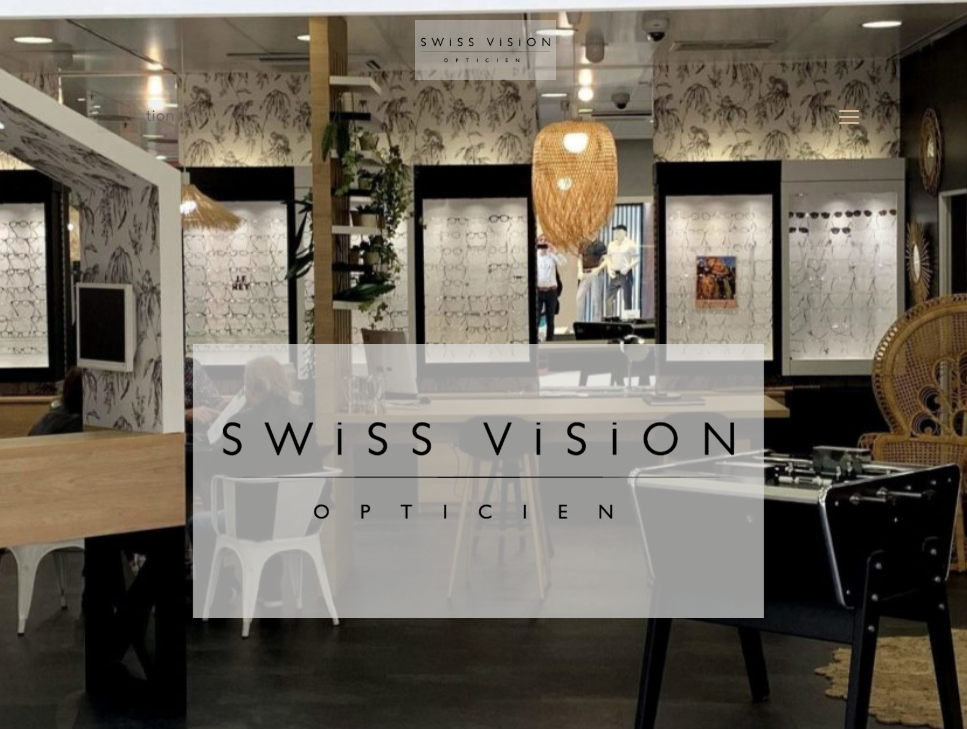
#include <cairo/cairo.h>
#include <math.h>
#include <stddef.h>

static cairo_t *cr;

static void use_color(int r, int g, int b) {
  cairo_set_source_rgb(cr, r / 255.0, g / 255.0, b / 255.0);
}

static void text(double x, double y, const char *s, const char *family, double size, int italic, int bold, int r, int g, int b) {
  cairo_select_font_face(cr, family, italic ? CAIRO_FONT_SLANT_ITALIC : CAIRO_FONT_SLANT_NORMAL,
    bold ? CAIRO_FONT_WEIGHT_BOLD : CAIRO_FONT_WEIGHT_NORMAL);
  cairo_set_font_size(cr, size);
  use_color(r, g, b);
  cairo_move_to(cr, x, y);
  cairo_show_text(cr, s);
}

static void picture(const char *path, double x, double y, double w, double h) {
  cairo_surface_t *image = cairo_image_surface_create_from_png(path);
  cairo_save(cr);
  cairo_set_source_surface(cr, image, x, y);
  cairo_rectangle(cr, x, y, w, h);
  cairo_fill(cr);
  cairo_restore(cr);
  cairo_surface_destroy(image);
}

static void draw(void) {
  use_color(255, 255, 255);
  cairo_paint(cr);
  picture("img_01.png", 0, 0, 967, 729);
  picture("img_02.png", 192, 344, 573, 274);
  picture("img_03.png", 415, 20, 141, 60);
  cairo_set_source_rgba(cr, 0, 0, 0, 0.05);
  cairo_rectangle(cr, 97, 100, 773, 33);
  cairo_fill(cr);
  picture("img_04.png", 839, 110, 20, 14);
  text(146, 121, "tion", "Comfortaa SemiBold", 14, 0, 0, 102, 102, 102);
}

int main(void) {
  cairo_surface_t *surface = cairo_image_surface_create(CAIRO_FORMAT_RGB24, 967, 729);
  cr = cairo_create(surface);
  cairo_font_options_t *options = cairo_font_options_create();
  cairo_font_options_set_hint_metrics(options, CAIRO_HINT_METRICS_OFF);
  cairo_font_options_set_hint_style(options, CAIRO_HINT_STYLE_NONE);
  cairo_set_font_options(cr, options);
  cairo_set_miter_limit(cr, 4);
  draw();
  cairo_surface_write_to_png(surface, "out.png");
  cairo_font_options_destroy(options);
  cairo_destroy(cr);
  cairo_surface_destroy(surface);
  return 0;
}
